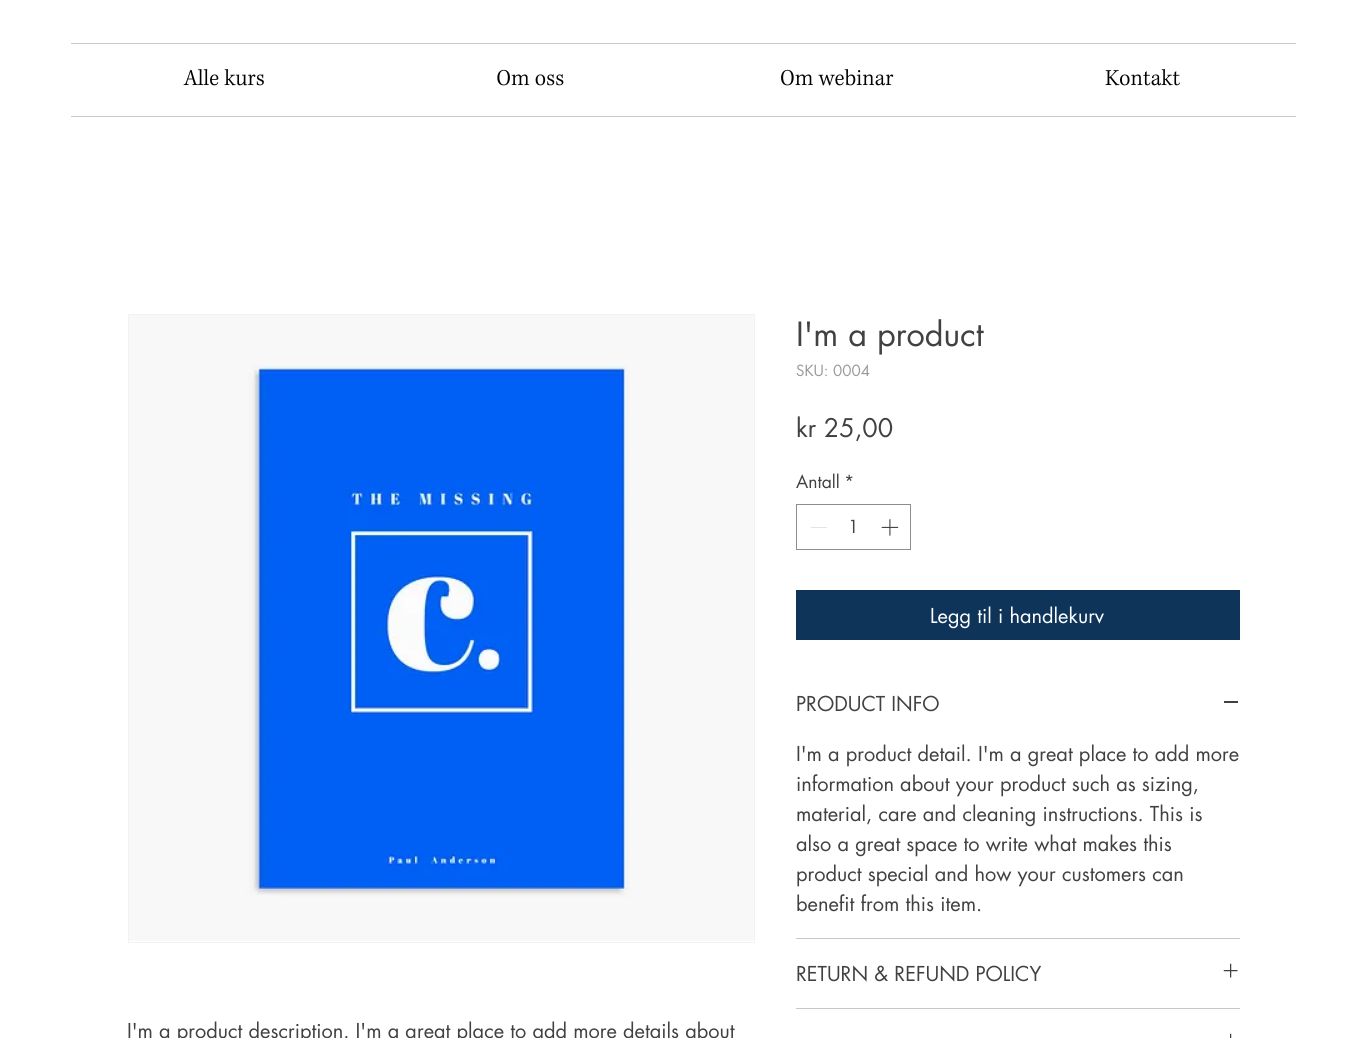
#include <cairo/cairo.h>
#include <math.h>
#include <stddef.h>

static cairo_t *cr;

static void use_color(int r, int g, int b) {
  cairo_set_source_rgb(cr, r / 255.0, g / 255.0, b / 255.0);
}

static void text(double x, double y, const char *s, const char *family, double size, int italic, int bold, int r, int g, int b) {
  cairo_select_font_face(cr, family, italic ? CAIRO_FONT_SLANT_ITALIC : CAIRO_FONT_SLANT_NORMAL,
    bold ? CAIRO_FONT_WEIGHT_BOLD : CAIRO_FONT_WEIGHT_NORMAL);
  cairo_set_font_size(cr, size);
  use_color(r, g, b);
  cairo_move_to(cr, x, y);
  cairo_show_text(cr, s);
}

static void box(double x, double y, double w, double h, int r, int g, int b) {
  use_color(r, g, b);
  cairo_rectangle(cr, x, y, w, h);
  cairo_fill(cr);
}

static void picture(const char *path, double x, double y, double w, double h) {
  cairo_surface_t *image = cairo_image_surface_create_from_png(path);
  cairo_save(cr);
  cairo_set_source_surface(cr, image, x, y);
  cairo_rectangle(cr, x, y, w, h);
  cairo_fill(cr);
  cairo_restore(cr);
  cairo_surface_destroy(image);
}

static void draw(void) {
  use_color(255, 255, 255);
  cairo_paint(cr);
  box(71, 43, 1225, 1, 202, 202, 202);
  box(71, 116, 1225, 1, 202, 202, 202);
  picture("img_01.png", 183, 69, 81, 17);
  picture("img_02.png", 497, 69, 67, 17);
  picture("img_03.png", 781, 69, 113, 17);
  picture("img_04.png", 1105, 69, 75, 17);
  cairo_rectangle(cr, 796.5, 504.5, 114, 45);
  use_color(141, 141, 141);
  cairo_set_line_width(cr, 1);
  cairo_stroke(cr);
  box(811, 527, 16, 1, 227, 227, 227);
  picture("img_05.png", 881, 519, 18, 17);
  box(796, 590, 444, 50, 14, 52, 90);
  box(796, 938, 444, 1, 199, 199, 199);
  box(1224, 701, 14, 2, 65, 65, 65);
  box(796, 1008, 444, 1, 199, 199, 199);
  picture("img_06.png", 1223, 963, 15, 15);
  picture("img_07.png", 1230, 1033, 2, 5);
  cairo_rectangle(cr, 128.5, 314.5, 626, 628);
  use_color(242, 242, 242);
  cairo_stroke(cr);
  picture("img_08.png", 129, 315, 625, 626);
  text(796, 346, "I'm a product", "futura", 32.5, 0, 0, 65, 65, 65);
  text(796, 376, "SKU: 0004", "futura", 15, 0, 0, 153, 153, 151);
  text(796, 437, "kr 25,00", "futura", 25, 0, 0, 65, 65, 65);
  text(796, 488, "Antall", "futura", 17.5, 0, 0, 65, 65, 65);
  text(844, 488, "*", "futura", 17.5, 0, 0, 65, 65, 65);
  text(848, 533, "1", "futura", 17.5, 0, 0, 65, 65, 65);
  text(930, 623, "Legg til i handlekurv", "futura", 20, 0, 0, 255, 255, 255);
  text(796, 711, "PRODUCT INFO", "futura", 20, 0, 0, 65, 65, 65);
  text(796, 761, "I'm a product detail. I'm a great place to add more", "futura", 20, 0, 0, 65, 65, 65);
  text(796, 791, "information about your product such as sizing,", "futura", 20, 0, 0, 65, 65, 65);
  text(796, 821, "material, care and cleaning instructions. This is", "futura", 20, 0, 0, 65, 65, 65);
  text(796, 851, "also a great space to write what makes this", "futura", 20, 0, 0, 65, 65, 65);
  text(796, 881, "product special and how your customers can", "futura", 20, 0, 0, 65, 65, 65);
  text(796, 911, "benefit from this item.", "futura", 20, 0, 0, 65, 65, 65);
  text(796, 981, "RETURN & REFUND POLICY", "futura", 20, 0, 0, 65, 65, 65);
  text(127, 1038, "I'm a product description. I'm a great place to add more details about", "futura", 20, 0, 0, 65, 65, 65);
}

int main(void) {
  cairo_surface_t *surface = cairo_image_surface_create(CAIRO_FORMAT_RGB24, 1366, 1038);
  cr = cairo_create(surface);
  cairo_font_options_t *options = cairo_font_options_create();
  cairo_font_options_set_hint_metrics(options, CAIRO_HINT_METRICS_OFF);
  cairo_font_options_set_hint_style(options, CAIRO_HINT_STYLE_NONE);
  cairo_set_font_options(cr, options);
  cairo_set_miter_limit(cr, 4);
  draw();
  cairo_surface_write_to_png(surface, "out.png");
  cairo_font_options_destroy(options);
  cairo_destroy(cr);
  cairo_surface_destroy(surface);
  return 0;
}
